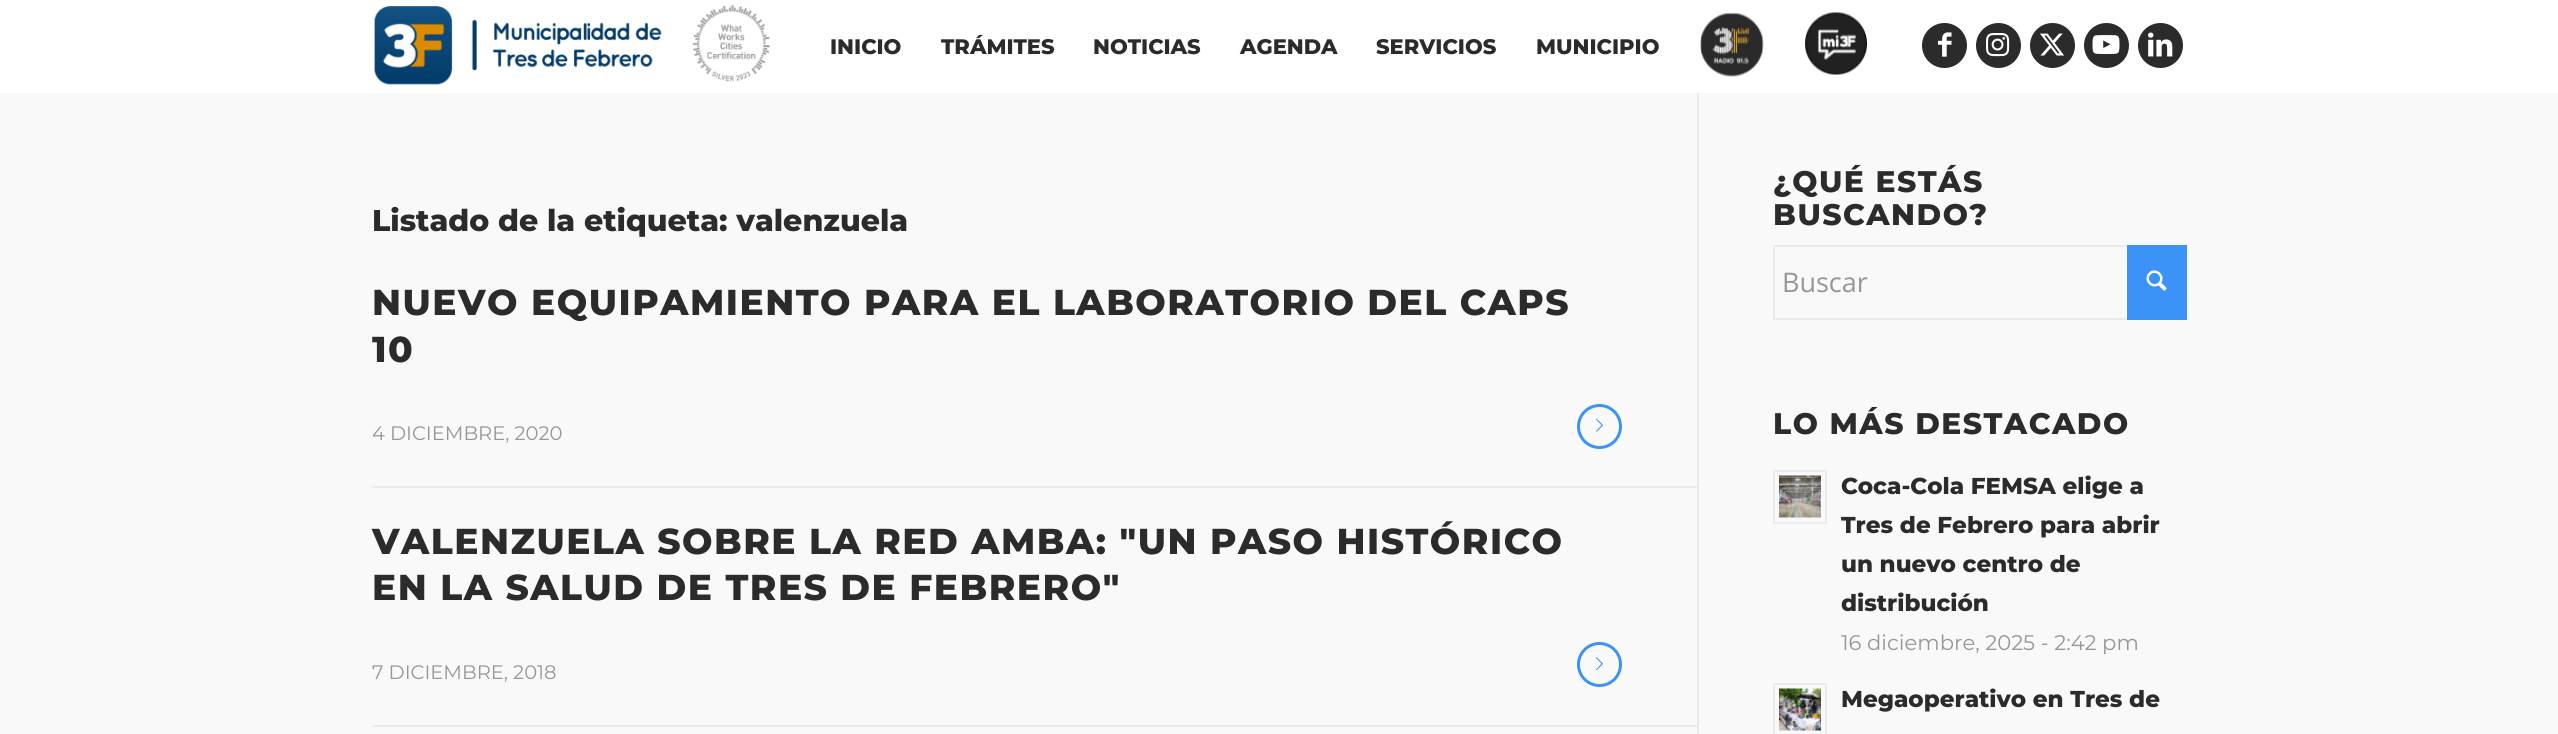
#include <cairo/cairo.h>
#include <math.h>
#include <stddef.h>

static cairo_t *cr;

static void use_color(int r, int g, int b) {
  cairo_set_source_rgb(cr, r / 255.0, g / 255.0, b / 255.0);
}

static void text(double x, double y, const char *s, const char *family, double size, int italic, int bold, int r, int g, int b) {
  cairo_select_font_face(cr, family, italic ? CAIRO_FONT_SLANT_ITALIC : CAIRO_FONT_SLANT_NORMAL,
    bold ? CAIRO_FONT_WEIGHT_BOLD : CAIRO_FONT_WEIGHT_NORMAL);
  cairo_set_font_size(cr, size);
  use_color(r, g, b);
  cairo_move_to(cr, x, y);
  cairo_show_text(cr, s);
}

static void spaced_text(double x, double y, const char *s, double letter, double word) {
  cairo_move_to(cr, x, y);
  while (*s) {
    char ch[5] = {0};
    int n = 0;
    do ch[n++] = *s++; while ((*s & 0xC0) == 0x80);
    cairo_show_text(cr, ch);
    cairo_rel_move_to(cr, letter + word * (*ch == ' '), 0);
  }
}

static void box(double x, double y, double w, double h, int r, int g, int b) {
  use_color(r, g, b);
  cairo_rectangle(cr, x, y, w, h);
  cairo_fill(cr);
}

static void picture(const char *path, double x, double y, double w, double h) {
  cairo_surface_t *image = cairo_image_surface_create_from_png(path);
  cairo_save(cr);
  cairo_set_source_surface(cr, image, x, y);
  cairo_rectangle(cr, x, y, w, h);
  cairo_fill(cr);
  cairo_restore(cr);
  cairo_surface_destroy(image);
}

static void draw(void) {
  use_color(255, 255, 255);
  cairo_paint(cr);
  picture("img_01.png", 374, 5, 396, 80);
  picture("img_02.png", 1700, 12, 64, 65);
  picture("img_03.png", 1805, 12, 62, 63);
  use_color(44, 43, 43);
  cairo_arc(cr, 1944.5, 45.5, 22.5, 0, 2 * M_PI);
  cairo_fill(cr);
  picture("img_04.png", 1938, 32, 14, 25);
  cairo_arc(cr, 1998.5, 45.5, 22.5, 0, 2 * M_PI);
  cairo_fill(cr);
  picture("img_05.png", 1986, 33, 24, 24);
  cairo_arc(cr, 2052.5, 45.5, 22.5, 0, 2 * M_PI);
  cairo_fill(cr);
  picture("img_06.png", 2040, 33, 25, 23);
  cairo_arc(cr, 2106.5, 45.5, 22.5, 0, 2 * M_PI);
  cairo_fill(cr);
  picture("img_07.png", 2092, 35, 28, 20);
  use_color(43, 43, 43);
  cairo_arc(cr, 2160.5, 45.5, 22.5, 0, 2 * M_PI);
  cairo_fill(cr);
  picture("img_08.png", 2148, 32, 25, 25);
  box(0, 93, 2558, 641, 249, 249, 249);
  box(1697, 92, 2, 642, 235, 235, 235);
  box(1697, 92, 2, 1, 254, 254, 254);
  box(372, 486, 1325, 2, 235, 235, 235);
  cairo_arc(cr, 1599.5, 426.5, 21, 0, 2 * M_PI);
  use_color(59, 147, 247);
  cairo_set_line_width(cr, 3);
  cairo_stroke(cr);
  picture("img_09.png", 1596, 418, 7, 14);
  box(372, 725, 1325, 2, 235, 235, 235);
  cairo_arc(cr, 1599.5, 664.5, 21, 0, 2 * M_PI);
  use_color(59, 147, 247);
  cairo_stroke(cr);
  picture("img_10.png", 1596, 657, 7, 14);
  cairo_rectangle(cr, 1774, 246, 412, 73);
  use_color(235, 235, 235);
  cairo_set_line_width(cr, 2);
  cairo_stroke(cr);
  box(2127, 245, 60, 75, 59, 147, 247);
  picture("img_11.png", 2146, 270, 21, 21);
  cairo_rectangle(cr, 1774, 471, 52, 52);
  use_color(235, 235, 235);
  cairo_stroke(cr);
  picture("img_12.png", 1779, 475, 42, 43);
  cairo_rectangle(cr, 1774, 684, 52, 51);
  cairo_stroke(cr);
  picture("img_13.png", 1779, 688, 42, 43);
  text(830, 54, "INICIO", "Montserrat ExtraBold", 21, 0, 0, 44, 43, 43);
  text(941, 54, "TRÁMITES", "Montserrat ExtraBold", 21, 0, 0, 44, 43, 43);
  text(1093, 54, "NOTICIAS", "Montserrat ExtraBold", 21, 0, 0, 44, 43, 43);
  text(1240, 54, "AGENDA", "Montserrat ExtraBold", 21, 0, 0, 44, 43, 43);
  text(1376, 54, "SERVICIOS", "Montserrat ExtraBold", 21, 0, 0, 44, 43, 43);
  text(1536, 54, "MUNICIPIO", "Montserrat ExtraBold", 21, 0, 0, 44, 43, 43);
  text(372, 231, "Listado de la etiqueta: valenzuela", "Montserrat ExtraBold", 30, 0, 0, 44, 43, 43);
  cairo_set_font_size(cr, 36);
  spaced_text(372, 315, "NUEVO EQUIPAMIENTO PARA EL LABORATORIO DEL CAPS", 1.5, 0);
  spaced_text(372, 362, "10", 1.5, 0);
  text(372, 440, "4 DICIEMBRE, 2020", "Montserrat", 19.5, 0, 0, 150, 150, 150);
  cairo_select_font_face(cr, "Montserrat ExtraBold", CAIRO_FONT_SLANT_NORMAL, CAIRO_FONT_WEIGHT_NORMAL);
  cairo_set_font_size(cr, 36);
  use_color(44, 43, 43);
  spaced_text(372, 554, "VALENZUELA SOBRE LA RED AMBA: \"UN PASO HISTÓRICO", 1.5, 0);
  spaced_text(372, 600, "EN LA SALUD DE TRES DE FEBRERO\"", 1.5, 0);
  text(372, 679, "7 DICIEMBRE, 2018", "Montserrat", 19.5, 0, 0, 150, 150, 150);
  cairo_select_font_face(cr, "Montserrat ExtraBold", CAIRO_FONT_SLANT_NORMAL, CAIRO_FONT_WEIGHT_NORMAL);
  cairo_set_font_size(cr, 29.75);
  use_color(44, 43, 43);
  spaced_text(1773, 192, "¿QUÉ ESTÁS", 1.5, 0);
  spaced_text(1773, 225, "BUSCANDO?", 1.5, 0);
  text(1782, 292, "Buscar", "Open Sans", 27, 0, 0, 150, 150, 150);
  cairo_select_font_face(cr, "Montserrat ExtraBold", CAIRO_FONT_SLANT_NORMAL, CAIRO_FONT_WEIGHT_NORMAL);
  cairo_set_font_size(cr, 29.75);
  use_color(44, 43, 43);
  spaced_text(1773, 434, "LO MÁS DESTACADO", 1.5, 0);
  text(1841, 494, "Coca-Cola FEMSA elige a", "Montserrat ExtraBold", 23, 0, 0, 44, 43, 43);
  text(1841, 533, "Tres de Febrero para abrir", "Montserrat ExtraBold", 23, 0, 0, 44, 43, 43);
  text(1841, 572, "un nuevo centro de", "Montserrat ExtraBold", 23, 0, 0, 44, 43, 43);
  text(1841, 611, "distribución", "Montserrat ExtraBold", 23, 0, 0, 44, 43, 43);
  text(1841, 650, "16 diciembre, 2025 - 2:42 pm", "Montserrat", 21.1, 0, 0, 150, 150, 150);
  text(1841, 707, "Megaoperativo en Tres de", "Montserrat ExtraBold", 23, 0, 0, 44, 43, 43);
}

int main(void) {
  cairo_surface_t *surface = cairo_image_surface_create(CAIRO_FORMAT_RGB24, 2558, 734);
  cr = cairo_create(surface);
  cairo_font_options_t *options = cairo_font_options_create();
  cairo_font_options_set_hint_metrics(options, CAIRO_HINT_METRICS_OFF);
  cairo_font_options_set_hint_style(options, CAIRO_HINT_STYLE_NONE);
  cairo_set_font_options(cr, options);
  cairo_set_miter_limit(cr, 4);
  draw();
  cairo_surface_write_to_png(surface, "out.png");
  cairo_font_options_destroy(options);
  cairo_destroy(cr);
  cairo_surface_destroy(surface);
  return 0;
}
